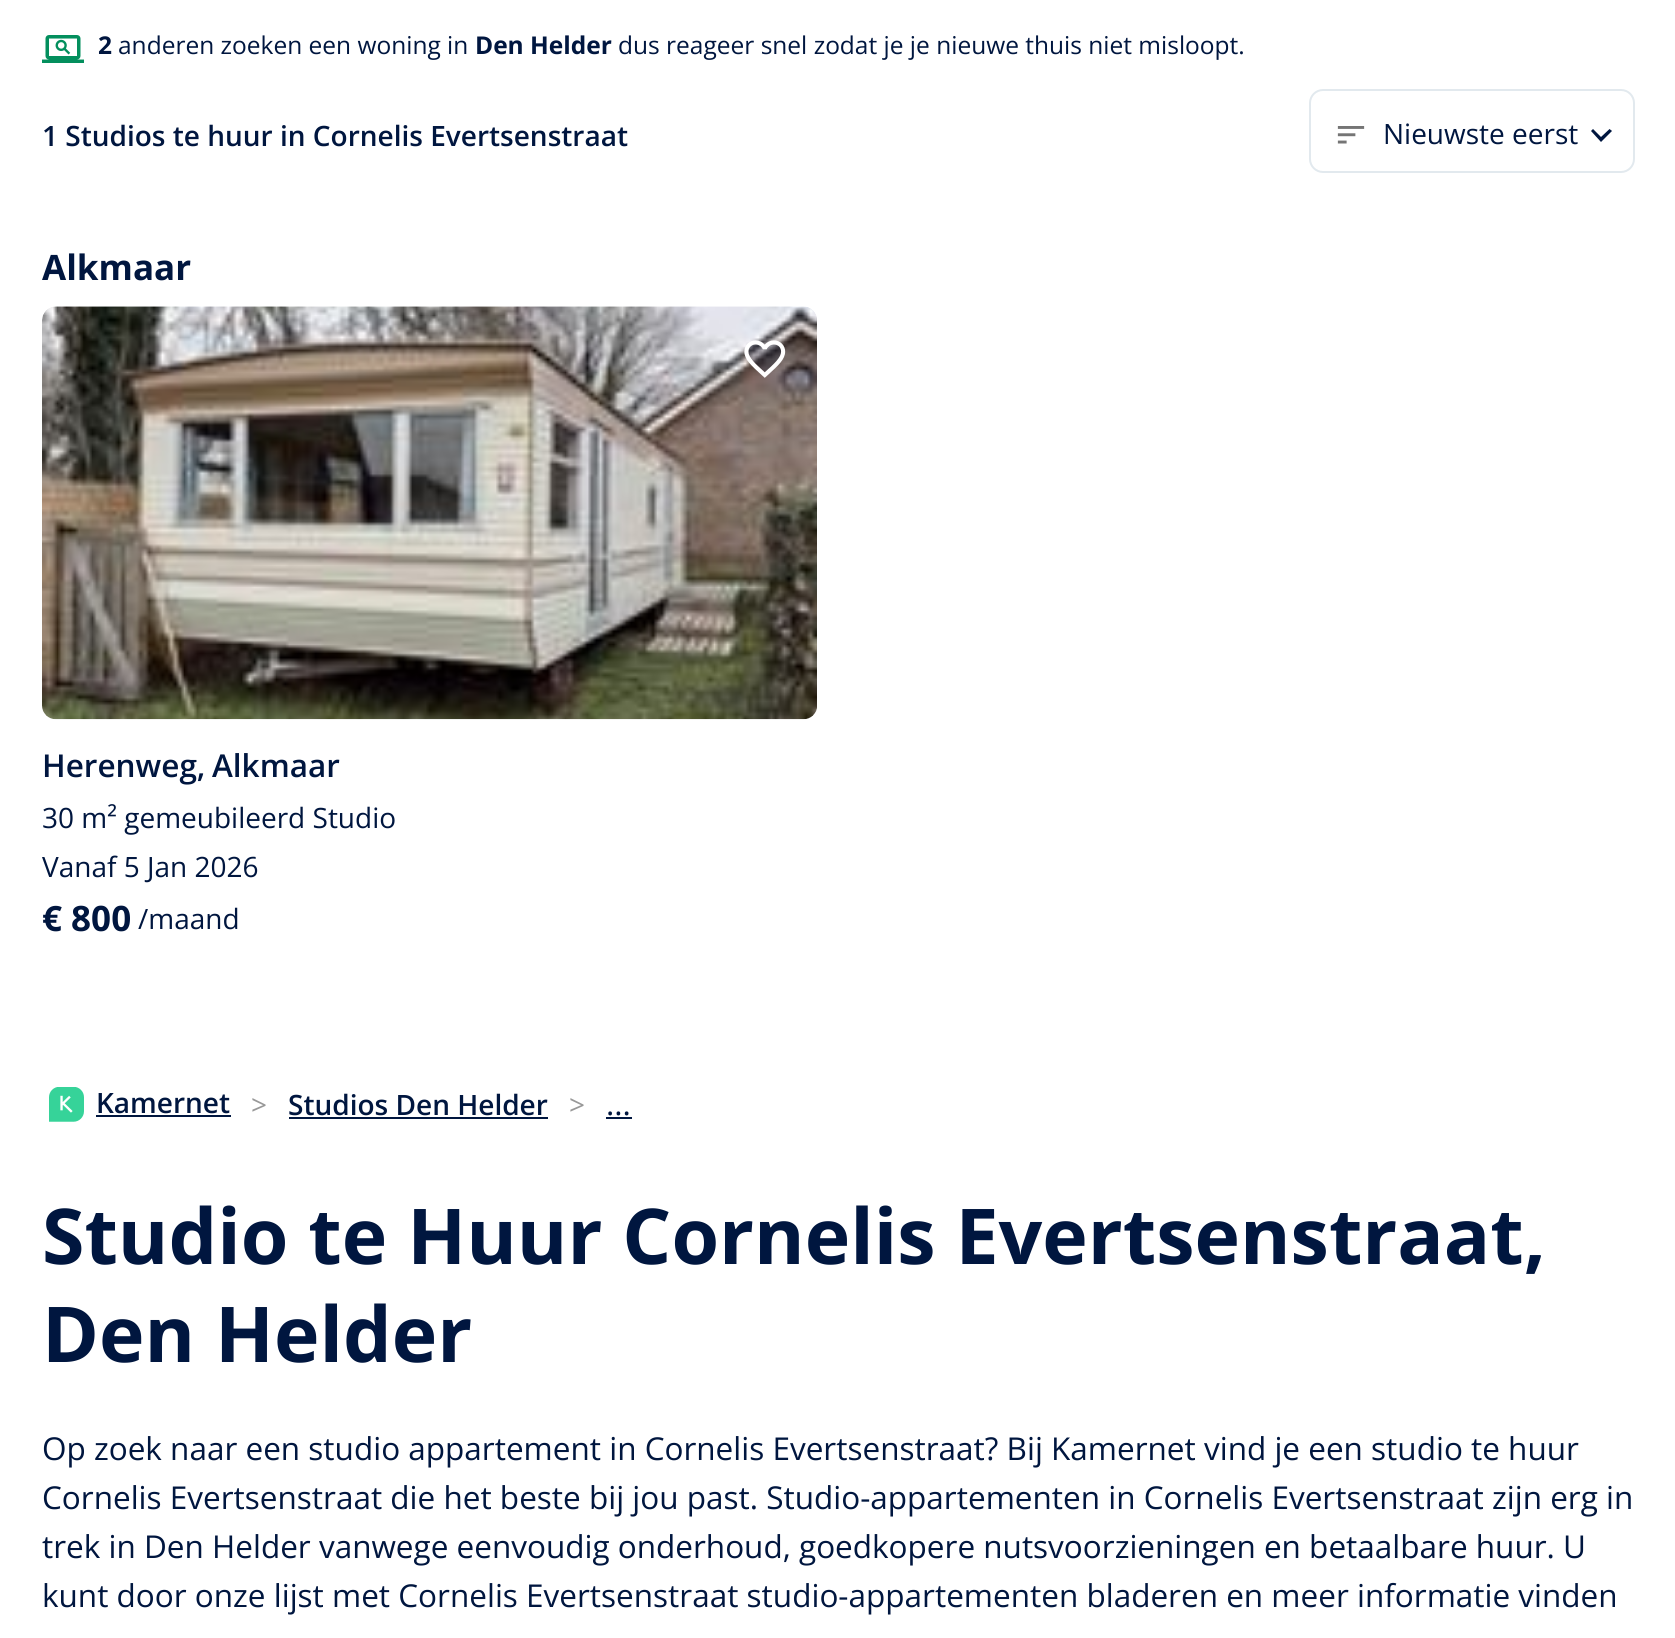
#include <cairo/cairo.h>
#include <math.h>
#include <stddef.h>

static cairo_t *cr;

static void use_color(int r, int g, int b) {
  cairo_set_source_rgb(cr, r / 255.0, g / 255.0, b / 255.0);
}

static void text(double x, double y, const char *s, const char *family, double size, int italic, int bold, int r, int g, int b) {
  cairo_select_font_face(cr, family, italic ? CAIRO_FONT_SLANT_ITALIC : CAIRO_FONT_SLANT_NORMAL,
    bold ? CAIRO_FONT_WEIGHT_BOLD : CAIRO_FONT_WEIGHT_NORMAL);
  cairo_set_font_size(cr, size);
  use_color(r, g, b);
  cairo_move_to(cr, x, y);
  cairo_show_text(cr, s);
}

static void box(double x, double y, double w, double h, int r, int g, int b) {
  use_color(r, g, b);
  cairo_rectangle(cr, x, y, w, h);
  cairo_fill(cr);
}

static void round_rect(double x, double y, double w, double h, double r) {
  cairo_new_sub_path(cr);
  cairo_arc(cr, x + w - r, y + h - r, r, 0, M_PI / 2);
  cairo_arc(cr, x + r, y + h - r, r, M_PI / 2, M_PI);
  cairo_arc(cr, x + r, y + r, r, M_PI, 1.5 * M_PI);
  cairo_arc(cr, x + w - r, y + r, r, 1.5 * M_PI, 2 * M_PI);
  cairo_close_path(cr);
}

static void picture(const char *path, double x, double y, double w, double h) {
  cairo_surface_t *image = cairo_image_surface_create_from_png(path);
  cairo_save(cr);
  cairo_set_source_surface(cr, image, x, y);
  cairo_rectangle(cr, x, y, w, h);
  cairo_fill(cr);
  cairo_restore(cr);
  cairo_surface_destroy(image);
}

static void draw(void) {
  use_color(255, 255, 255);
  cairo_paint(cr);
  picture("img_01.png", 42, 35, 42, 28);
  picture("img_02.png", 1337, 126, 28, 18);
  use_color(0, 22, 63);
  cairo_new_path(cr);
  cairo_move_to(cr, 1593, 129);
  cairo_line_to(cr, 1601, 137);
  cairo_line_to(cr, 1609.5, 129);
  cairo_line_to(cr, 1612, 131);
  cairo_line_to(cr, 1601, 142);
  cairo_line_to(cr, 1591, 131);
  cairo_close_path(cr);
  cairo_fill(cr);
  round_rect(1310, 90, 324, 82, 13);
  use_color(226, 233, 238);
  cairo_stroke(cr);
  picture("img_03.png", 42, 306, 775, 414);
  picture("img_04.png", 744, 340, 42, 38);
  picture("img_05.png", 49, 1087, 35, 35);
  box(96, 1115, 135, 2, 0, 22, 63);
  box(289, 1117, 259, 2, 0, 22, 63);
  box(606, 1117, 26, 2, 0, 22, 63);
  text(98, 54, "2", "Open Sans", 24.5, 0, 1, 0, 22, 63);
  text(118, 54, "anderen zoeken een woning in", "Open Sans", 24.5, 0, 0, 0, 22, 63);
  text(475, 54, "Den Helder", "Open Sans", 24.5, 0, 1, 0, 22, 63);
  text(618, 54, "dus reageer snel zodat je je nieuwe thuis niet misloopt.", "Open Sans", 24.5, 0, 0, 0, 22, 63);
  text(42, 146, "1 Studios te huur in Cornelis Evertsenstraat", "Open Sans SemiBold", 28, 0, 0, 0, 22, 63);
  text(1383, 144, "Nieuwste eerst", "Open Sans", 28, 0, 0, 0, 22, 63);
  text(42, 280, "Alkmaar", "Open Sans", 35, 0, 1, 0, 22, 63);
  text(42, 777, "Herenweg,", "Open Sans SemiBold", 31.5, 0, 0, 0, 22, 63);
  text(212, 777, "Alkmaar", "Open Sans SemiBold", 31.5, 0, 0, 0, 22, 63);
  text(42, 828, "30 m² gemeubileerd Studio", "Open Sans", 28, 0, 0, 0, 22, 63);
  text(42, 877, "Vanaf 5 Jan 2026", "Open Sans", 28, 0, 0, 0, 22, 63);
  text(42, 931, "€ 800", "Open Sans", 35, 0, 1, 0, 22, 63);
  text(138, 929, "/maand", "Open Sans", 28, 0, 0, 0, 22, 63);
  text(96, 1113, "Kamernet", "Open Sans SemiBold", 28, 0, 0, 0, 22, 63);
  text(251, 1115, ">", "Open Sans", 28, 0, 0, 152, 152, 152);
  text(288, 1115, "Studios Den Helder", "Open Sans SemiBold", 28, 0, 0, 0, 22, 63);
  text(569, 1115, ">", "Open Sans", 28, 0, 0, 152, 152, 152);
  text(606, 1115, "...", "Open Sans", 31.5, 0, 0, 0, 22, 63);
  text(42, 1264, "Studio te Huur Cornelis Evertsenstraat,", "Open Sans", 77, 0, 1, 0, 22, 63);
  text(42, 1362, "Den Helder", "Open Sans", 77, 0, 1, 0, 22, 63);
  text(42, 1460, "Op zoek naar een studio appartement in Cornelis Evertsenstraat? Bij Kamernet vind je een studio te huur", "Open Sans", 31.5, 0, 0, 0, 22, 63);
  text(42, 1509, "Cornelis Evertsenstraat die het beste bij jou past. Studio-appartementen in Cornelis Evertsenstraat zijn erg in", "Open Sans", 31.5, 0, 0, 0, 22, 63);
  text(42, 1558, "trek in Den Helder vanwege eenvoudig onderhoud, goedkopere nutsvoorzieningen en betaalbare huur. U", "Open Sans", 31.5, 0, 0, 0, 22, 63);
  text(42, 1607, "kunt door onze lijst met Cornelis Evertsenstraat studio-appartementen bladeren en meer informatie vinden", "Open Sans", 31.5, 0, 0, 0, 22, 63);
}

int main(void) {
  cairo_surface_t *surface = cairo_image_surface_create(CAIRO_FORMAT_RGB24, 1675, 1638);
  cr = cairo_create(surface);
  cairo_font_options_t *options = cairo_font_options_create();
  cairo_font_options_set_hint_metrics(options, CAIRO_HINT_METRICS_OFF);
  cairo_font_options_set_hint_style(options, CAIRO_HINT_STYLE_NONE);
  cairo_set_font_options(cr, options);
  cairo_set_miter_limit(cr, 4);
  draw();
  cairo_surface_write_to_png(surface, "out.png");
  cairo_font_options_destroy(options);
  cairo_destroy(cr);
  cairo_surface_destroy(surface);
  return 0;
}
